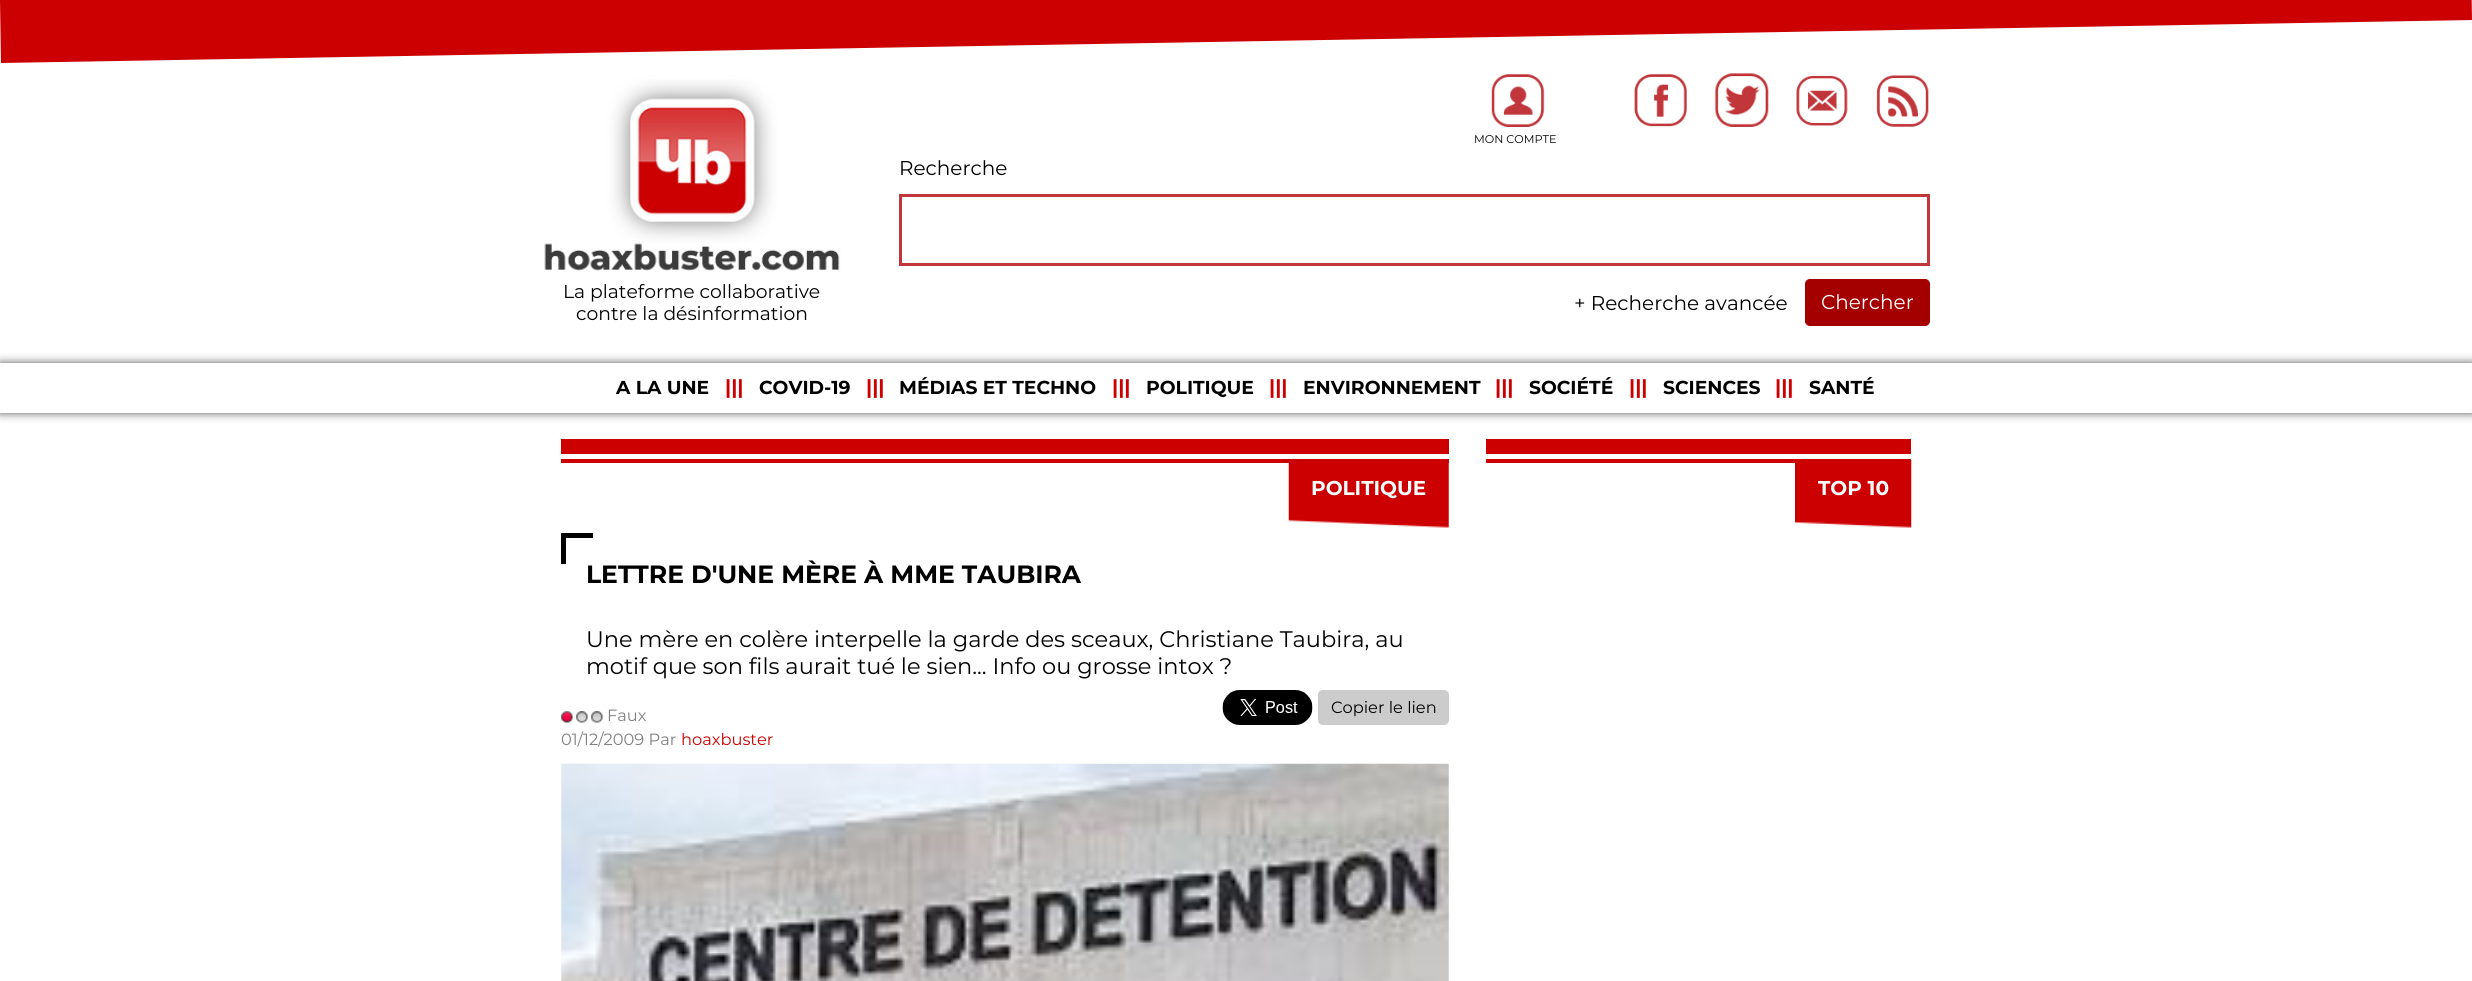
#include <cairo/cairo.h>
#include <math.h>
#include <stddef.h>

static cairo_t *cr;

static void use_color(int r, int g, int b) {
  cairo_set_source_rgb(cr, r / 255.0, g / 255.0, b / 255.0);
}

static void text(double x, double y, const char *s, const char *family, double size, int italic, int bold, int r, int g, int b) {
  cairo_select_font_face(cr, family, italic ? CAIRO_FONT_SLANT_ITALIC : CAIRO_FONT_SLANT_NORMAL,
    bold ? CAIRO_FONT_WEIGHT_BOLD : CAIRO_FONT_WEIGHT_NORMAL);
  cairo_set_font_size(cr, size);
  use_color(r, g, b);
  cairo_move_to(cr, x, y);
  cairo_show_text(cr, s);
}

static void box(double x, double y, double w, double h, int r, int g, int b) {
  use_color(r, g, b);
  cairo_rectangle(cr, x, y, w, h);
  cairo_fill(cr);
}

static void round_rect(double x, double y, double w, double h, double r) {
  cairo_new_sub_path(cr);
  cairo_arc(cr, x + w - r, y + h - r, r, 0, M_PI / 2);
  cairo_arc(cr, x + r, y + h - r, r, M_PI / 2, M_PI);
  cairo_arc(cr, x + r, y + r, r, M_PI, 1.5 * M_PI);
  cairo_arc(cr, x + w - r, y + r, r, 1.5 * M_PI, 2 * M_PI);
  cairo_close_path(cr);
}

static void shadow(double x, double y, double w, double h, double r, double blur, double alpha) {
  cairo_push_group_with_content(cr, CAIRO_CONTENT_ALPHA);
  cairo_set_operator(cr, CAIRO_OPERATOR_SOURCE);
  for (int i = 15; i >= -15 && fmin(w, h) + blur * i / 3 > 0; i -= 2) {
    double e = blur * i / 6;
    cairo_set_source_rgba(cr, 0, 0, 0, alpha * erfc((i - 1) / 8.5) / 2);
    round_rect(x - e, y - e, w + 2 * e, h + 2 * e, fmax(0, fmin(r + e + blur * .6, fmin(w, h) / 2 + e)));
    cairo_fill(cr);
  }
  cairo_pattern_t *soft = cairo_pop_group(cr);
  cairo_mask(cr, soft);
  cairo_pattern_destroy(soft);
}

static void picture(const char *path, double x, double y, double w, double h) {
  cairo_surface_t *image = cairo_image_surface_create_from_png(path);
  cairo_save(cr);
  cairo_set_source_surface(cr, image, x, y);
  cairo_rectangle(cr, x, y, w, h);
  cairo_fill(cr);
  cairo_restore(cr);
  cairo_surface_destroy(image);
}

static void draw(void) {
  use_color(255, 255, 255);
  cairo_paint(cr);
  use_color(204, 0, 1);
  cairo_new_path(cr);
  cairo_move_to(cr, 0, 0);
  cairo_line_to(cr, 2471, -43);
  cairo_line_to(cr, 2472, 20);
  cairo_line_to(cr, 1, 63);
  cairo_close_path(cr);
  cairo_fill(cr);
  picture("img_01.png", 544, 79, 297, 193);
  picture("img_02.png", 1634, 74, 53, 53);
  picture("img_03.png", 1714, 73, 55, 54);
  picture("img_04.png", 1796, 75, 52, 51);
  picture("img_05.png", 1876, 75, 53, 52);
  picture("img_06.png", 1491, 74, 54, 53);
  cairo_rectangle(cr, 900.5, 195.5, 1028, 69);
  use_color(193, 54, 58);
  cairo_set_line_width(cr, 3);
  cairo_stroke(cr);
  use_color(165, 0, 0);
  round_rect(1805.5, 279.5, 124, 46, 4.5);
  cairo_fill_preserve(cr);
  cairo_set_line_width(cr, 1);
  cairo_stroke(cr);
  cairo_save(cr);
  cairo_set_fill_rule(cr, CAIRO_FILL_RULE_EVEN_ODD);
  cairo_new_path(cr);
  cairo_move_to(cr, 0, 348);
  cairo_line_to(cr, 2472, 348);
  cairo_line_to(cr, 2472, 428);
  cairo_line_to(cr, 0, 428);
  cairo_close_path(cr);
  cairo_move_to(cr, 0, 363);
  cairo_line_to(cr, 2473, 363);
  cairo_line_to(cr, 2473, 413);
  cairo_line_to(cr, 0, 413);
  cairo_close_path(cr);
  cairo_clip(cr);
  use_color(85, 85, 85);
  shadow(0, 363, 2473, 50, 0, 4.5, 1);
  cairo_restore(cr);
  box(561, 439, 888, 15, 204, 0, 1);
  box(561, 459, 888, 4, 204, 0, 1);
  picture("img_07.png", 1288, 463, 161, 65);
  box(561, 533, 32, 5, 0, 0, 0);
  box(561, 533, 5, 31, 0, 0, 0);
  picture("img_08.png", 561, 711, 42, 12);
  picture("img_09.png", 1222, 690, 91, 35);
  use_color(204, 204, 204);
  round_rect(1318, 690, 131, 35, 5);
  cairo_fill(cr);
  picture("img_10.png", 561, 763, 888, 218);
  box(1486, 439, 425, 15, 204, 0, 1);
  box(1486, 459, 425, 4, 204, 0, 1);
  picture("img_11.png", 1795, 460, 117, 68);
  text(563, 298, "La plateforme collaborative", "Montserrat", 18.75, 0, 0, 0, 0, 0);
  text(576, 320, "contre la désinformation", "Montserrat", 18.75, 0, 0, 0, 0, 0);
  text(1474, 143, "MON COMPTE", "Montserrat", 11.25, 0, 0, 0, 0, 0);
  text(899, 175, "Recherche", "Montserrat", 20, 0, 0, 0, 0, 0);
  text(1574, 310, "+ Recherche avancée", "Montserrat", 20, 0, 0, 0, 0, 0);
  text(1821, 309, "Chercher", "Montserrat", 20, 0, 0, 255, 255, 255);
  text(616, 394, "A LA UNE", "Montserrat", 18.75, 0, 1, 0, 0, 0);
  text(725, 394, "|||", "Montserrat", 20, 0, 1, 204, 0, 1);
  text(759, 394, "COVID-19", "Montserrat", 18.75, 0, 1, 0, 0, 0);
  text(866, 394, "|||", "Montserrat", 20, 0, 1, 204, 0, 1);
  text(899, 394, "MÉDIAS ET TECHNO", "Montserrat", 18.75, 0, 1, 0, 0, 0);
  text(1112, 394, "|||", "Montserrat", 20, 0, 1, 204, 0, 1);
  text(1146, 394, "POLITIQUE", "Montserrat", 18.75, 0, 1, 0, 0, 0);
  text(1269, 394, "|||", "Montserrat", 20, 0, 1, 204, 0, 1);
  text(1303, 394, "ENVIRONNEMENT", "Montserrat", 18.75, 0, 1, 0, 0, 0);
  text(1495, 394, "|||", "Montserrat", 20, 0, 1, 204, 0, 1);
  text(1529, 394, "SOCIÉTÉ", "Montserrat", 18.75, 0, 1, 0, 0, 0);
  text(1629, 394, "|||", "Montserrat", 20, 0, 1, 204, 0, 1);
  text(1663, 394, "SCIENCES", "Montserrat", 18.75, 0, 1, 0, 0, 0);
  text(1775, 394, "|||", "Montserrat", 20, 0, 1, 204, 0, 1);
  text(1809, 394, "SANTÉ", "Montserrat", 18.75, 0, 1, 0, 0, 0);
  text(1311, 495, "POLITIQUE", "Montserrat", 20, 0, 1, 255, 255, 255);
  text(586, 583, "LETTRE D'UNE MÈRE À MME TAUBIRA", "Montserrat", 25, 0, 1, 0, 0, 0);
  text(586, 647, "Une mère en colère interpelle la garde des sceaux, Christiane Taubira, au", "Montserrat", 22.5, 0, 0, 0, 0, 0);
  text(586, 674, "motif que son fils aurait tué le sien... Info ou grosse intox ?", "Montserrat", 22.5, 0, 0, 0, 0, 0);
  text(607, 721, "Faux", "Montserrat", 16.25, 0, 0, 128, 128, 128);
  text(561, 745, "01/12/2009 Par", "Montserrat", 16.25, 0, 0, 128, 128, 128);
  text(681, 745, "hoaxbuster", "Montserrat", 16.25, 0, 0, 204, 0, 1);
  text(1331, 713, "Copier le lien", "Montserrat", 16.25, 0, 0, 0, 0, 0);
  text(1818, 495, "TOP 10", "Montserrat", 20, 0, 1, 255, 255, 255);
}

int main(void) {
  cairo_surface_t *surface = cairo_image_surface_create(CAIRO_FORMAT_RGB24, 2472, 981);
  cr = cairo_create(surface);
  cairo_font_options_t *options = cairo_font_options_create();
  cairo_font_options_set_hint_metrics(options, CAIRO_HINT_METRICS_OFF);
  cairo_font_options_set_hint_style(options, CAIRO_HINT_STYLE_NONE);
  cairo_set_font_options(cr, options);
  cairo_set_miter_limit(cr, 4);
  draw();
  cairo_surface_write_to_png(surface, "out.png");
  cairo_font_options_destroy(options);
  cairo_destroy(cr);
  cairo_surface_destroy(surface);
  return 0;
}
